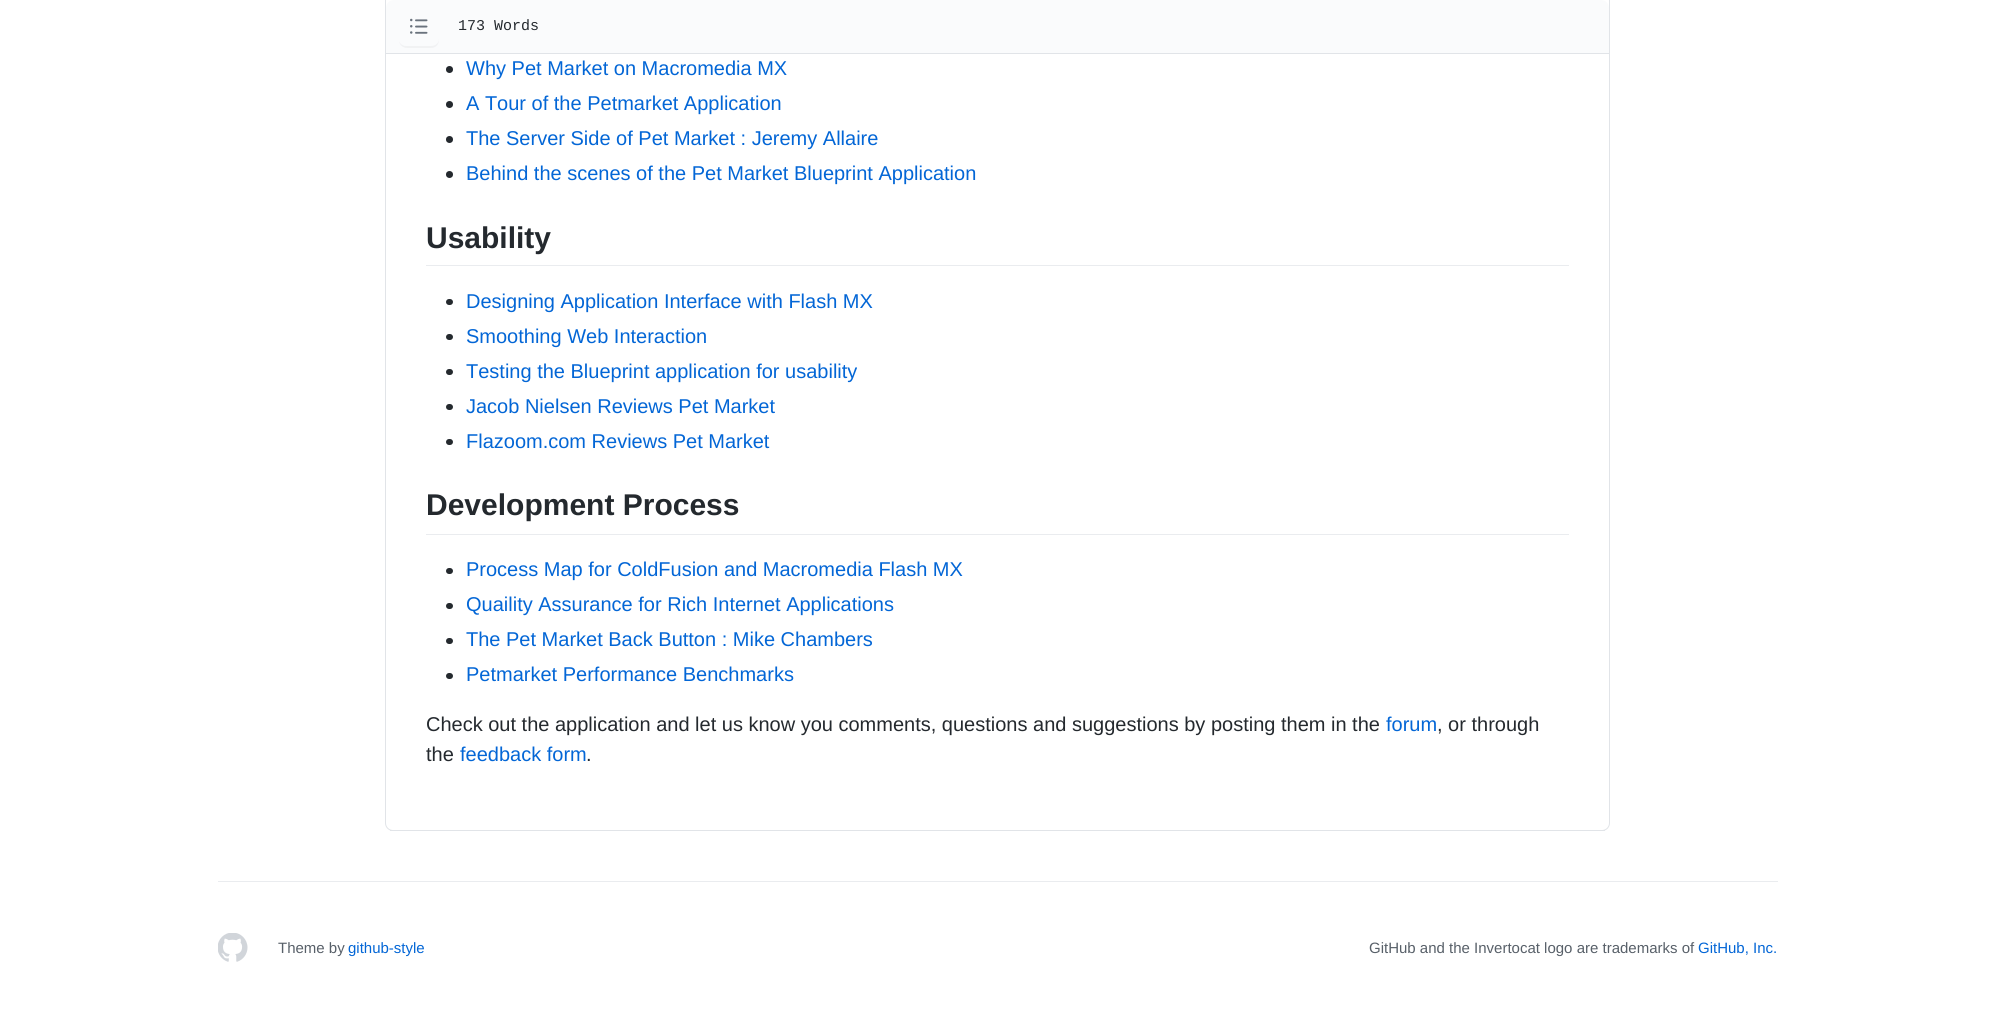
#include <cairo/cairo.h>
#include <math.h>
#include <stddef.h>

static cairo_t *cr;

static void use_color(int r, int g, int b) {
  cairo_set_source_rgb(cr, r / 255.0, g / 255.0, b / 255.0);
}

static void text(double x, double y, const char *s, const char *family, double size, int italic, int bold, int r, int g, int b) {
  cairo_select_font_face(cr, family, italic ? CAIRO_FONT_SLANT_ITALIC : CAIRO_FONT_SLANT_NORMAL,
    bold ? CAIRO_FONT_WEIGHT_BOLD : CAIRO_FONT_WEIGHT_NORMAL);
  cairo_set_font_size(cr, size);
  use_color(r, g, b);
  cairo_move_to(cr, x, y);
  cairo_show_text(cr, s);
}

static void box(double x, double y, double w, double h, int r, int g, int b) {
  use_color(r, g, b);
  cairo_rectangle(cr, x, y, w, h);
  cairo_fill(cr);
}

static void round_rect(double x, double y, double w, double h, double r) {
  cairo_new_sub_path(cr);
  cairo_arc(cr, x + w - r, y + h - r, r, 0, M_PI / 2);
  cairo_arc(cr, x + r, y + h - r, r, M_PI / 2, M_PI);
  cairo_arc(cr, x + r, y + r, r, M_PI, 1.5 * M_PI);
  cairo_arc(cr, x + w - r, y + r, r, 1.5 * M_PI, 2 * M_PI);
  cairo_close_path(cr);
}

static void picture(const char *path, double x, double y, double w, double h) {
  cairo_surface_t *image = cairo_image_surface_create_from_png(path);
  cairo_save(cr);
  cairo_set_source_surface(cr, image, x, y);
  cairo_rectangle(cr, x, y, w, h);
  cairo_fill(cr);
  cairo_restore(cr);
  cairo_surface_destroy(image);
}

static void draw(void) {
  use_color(255, 255, 255);
  cairo_paint(cr);
  round_rect(385.5, -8.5, 1224, 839, 7.5);
  use_color(225, 228, 232);
  cairo_set_line_width(cr, 1);
  cairo_stroke(cr);
  use_color(250, 251, 252);
  cairo_new_path(cr);
  cairo_move_to(cr, 394, 0);
  cairo_line_to(cr, 1601, 0);
  cairo_curve_to(cr, 1605.5, 0, 1609, 3.5, 1609, 8);
  cairo_line_to(cr, 1609, 54);
  cairo_line_to(cr, 386, 54);
  cairo_line_to(cr, 386, 8);
  cairo_curve_to(cr, 386, 3.5, 389.5, 0, 394, 0);
  cairo_close_path(cr);
  cairo_fill(cr);
  box(386, 53, 1223, 1, 225, 228, 232);
  use_color(241, 242, 243);
  cairo_new_path(cr);
  cairo_move_to(cr, 399, 41);
  cairo_curve_to(cr, 399.5, 45, 403, 48, 407, 48);
  cairo_line_to(cr, 431, 48);
  cairo_curve_to(cr, 435.5, 48, 439, 44.5, 439, 40);
  cairo_line_to(cr, 439, 16);
  cairo_line_to(cr, 439, 14);
  cairo_line_to(cr, 439, 39);
  cairo_curve_to(cr, 439, 43, 435.5, 46, 431, 46);
  cairo_line_to(cr, 406, 46);
  cairo_curve_to(cr, 403, 46, 400, 44, 399, 41);
  cairo_close_path(cr);
  cairo_fill(cr);
  picture("img_01.png", 410, 18, 18, 16);
  box(390, 830, 1215, 1, 225, 228, 232);
  use_color(36, 41, 46);
  cairo_arc(cr, 449.5, 69.5, 3.5, 0, 2 * M_PI);
  cairo_fill(cr);
  cairo_arc(cr, 449.5, 104.5, 3.5, 0, 2 * M_PI);
  cairo_fill(cr);
  cairo_arc(cr, 449.5, 139.5, 3.5, 0, 2 * M_PI);
  cairo_fill(cr);
  cairo_arc(cr, 449.5, 174.5, 3.5, 0, 2 * M_PI);
  cairo_fill(cr);
  box(426, 265, 1143, 1, 234, 236, 239);
  use_color(36, 41, 46);
  round_rect(446, 299, 7, 6, 3);
  cairo_fill(cr);
  round_rect(446, 334, 7, 6, 3);
  cairo_fill(cr);
  round_rect(446, 369, 7, 6, 3);
  cairo_fill(cr);
  round_rect(446, 404, 7, 6, 3);
  cairo_fill(cr);
  round_rect(446, 439, 7, 6, 3);
  cairo_fill(cr);
  box(426, 534, 1143, 1, 234, 236, 239);
  use_color(36, 41, 46);
  round_rect(446, 568, 7, 6, 3);
  cairo_fill(cr);
  round_rect(446, 603, 7, 6, 3);
  cairo_fill(cr);
  round_rect(446, 638, 7, 6, 3);
  cairo_fill(cr);
  round_rect(446, 673, 7, 6, 3);
  cairo_fill(cr);
  box(218, 881, 1560, 1, 234, 236, 239);
  picture("img_02.png", 218, 933, 30, 29);
  text(458, 30, "173 Words", "Liberation Mono", 15, 0, 0, 36, 41, 46);
  text(466, 75, "Why Pet Market on Macromedia MX", "Liberation Sans", 20, 0, 0, 3, 102, 214);
  text(466, 110, "A Tour of the Petmarket Application", "Liberation Sans", 20, 0, 0, 3, 102, 214);
  text(466, 145, "The Server Side of Pet Market : Jeremy Allaire", "Liberation Sans", 20, 0, 0, 3, 102, 214);
  text(466, 180, "Behind the scenes of the Pet Market Blueprint Application", "Liberation Sans", 20, 0, 0, 3, 102, 214);
  text(426, 248, "Usability", "Liberation Sans", 30, 0, 1, 36, 41, 46);
  text(466, 308, "Designing Application Interface with Flash MX", "Liberation Sans", 20, 0, 0, 3, 102, 214);
  text(466, 343, "Smoothing Web Interaction", "Liberation Sans", 20, 0, 0, 3, 102, 214);
  text(466, 378, "Testing the Blueprint application for usability", "Liberation Sans", 20, 0, 0, 3, 102, 214);
  text(466, 413, "Jacob Nielsen Reviews Pet Market", "Liberation Sans", 20, 0, 0, 3, 102, 214);
  text(466, 448, "Flazoom.com Reviews Pet Market", "Liberation Sans", 20, 0, 0, 3, 102, 214);
  text(426, 515, "Development Process", "Liberation Sans", 30, 0, 1, 36, 41, 46);
  text(466, 576, "Process Map for ColdFusion and Macromedia Flash MX", "Liberation Sans", 20, 0, 0, 3, 102, 214);
  text(466, 611, "Quaility Assurance for Rich Internet Applications", "Liberation Sans", 20, 0, 0, 3, 102, 214);
  text(466, 646, "The Pet Market Back Button : Mike Chambers", "Liberation Sans", 20, 0, 0, 3, 102, 214);
  text(466, 681, "Petmarket Performance Benchmarks", "Liberation Sans", 20, 0, 0, 3, 102, 214);
  text(426, 731, "Check out the application and let us know you comments, questions and suggestions by posting them in the", "Liberation Sans", 20, 0, 0, 36, 41, 46);
  text(1386, 731, "forum", "Liberation Sans", 20, 0, 0, 3, 102, 214);
  text(1437, 731, ", or through", "Liberation Sans", 20, 0, 0, 36, 41, 46);
  text(426, 761, "the", "Liberation Sans", 20, 0, 0, 36, 41, 46);
  text(460, 761, "feedback form", "Liberation Sans", 20, 0, 0, 3, 102, 214);
  text(586, 761, ".", "Liberation Sans", 20, 0, 0, 36, 41, 46);
  text(278, 953, "Theme by", "Liberation Sans", 15, 0, 0, 88, 96, 105);
  text(348, 953, "github-style", "Liberation Sans", 15, 0, 0, 3, 102, 214);
  text(1369, 953, "GitHub and the Invertocat logo are trademarks of", "Liberation Sans", 15, 0, 0, 88, 96, 105);
  text(1698, 953, "GitHub, Inc.", "Liberation Sans", 15, 0, 0, 3, 102, 214);
}

int main(void) {
  cairo_surface_t *surface = cairo_image_surface_create(CAIRO_FORMAT_RGB24, 1995, 1025);
  cr = cairo_create(surface);
  cairo_font_options_t *options = cairo_font_options_create();
  cairo_font_options_set_hint_metrics(options, CAIRO_HINT_METRICS_OFF);
  cairo_font_options_set_hint_style(options, CAIRO_HINT_STYLE_NONE);
  cairo_set_font_options(cr, options);
  cairo_set_miter_limit(cr, 4);
  draw();
  cairo_surface_write_to_png(surface, "out.png");
  cairo_font_options_destroy(options);
  cairo_destroy(cr);
  cairo_surface_destroy(surface);
  return 0;
}
